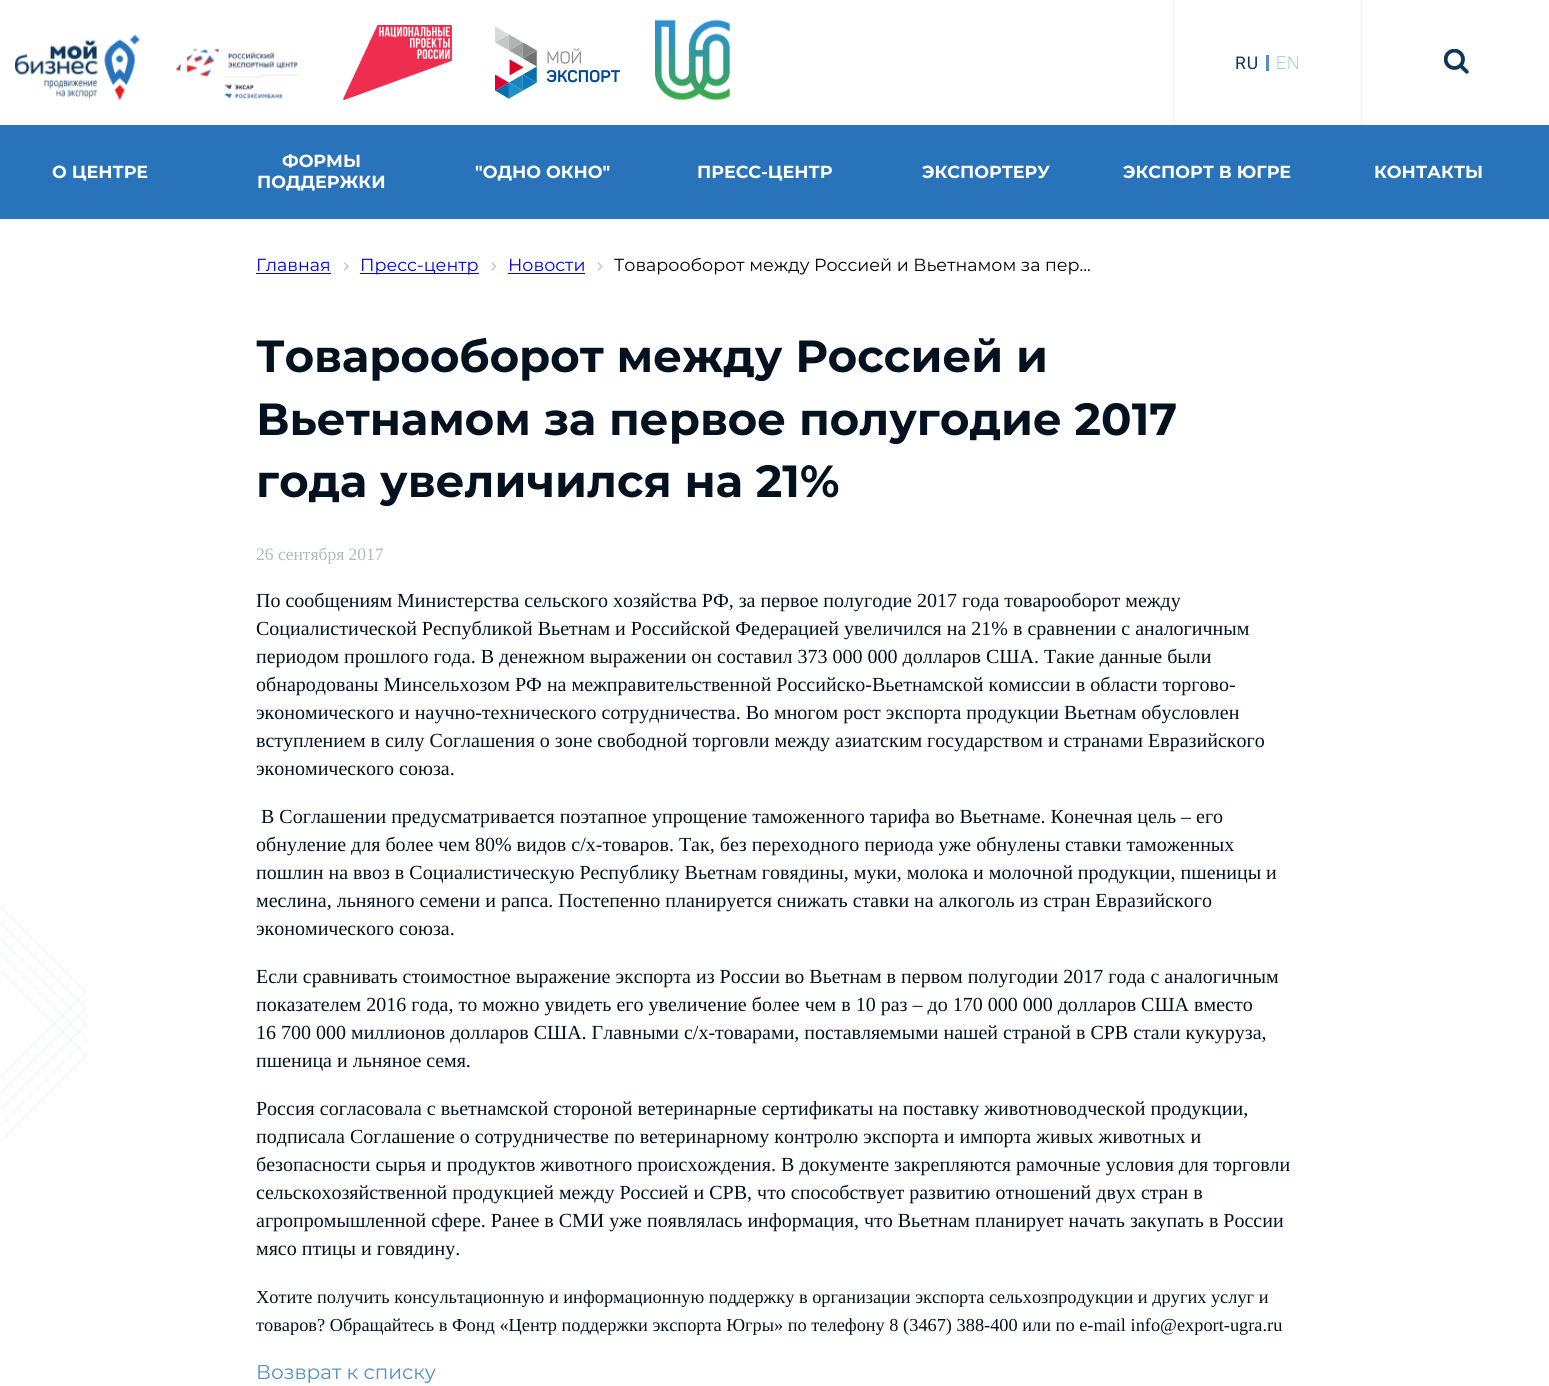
#include <cairo/cairo.h>
#include <math.h>
#include <stddef.h>

static cairo_t *cr;

static void use_color(int r, int g, int b) {
  cairo_set_source_rgb(cr, r / 255.0, g / 255.0, b / 255.0);
}

static void text(double x, double y, const char *s, const char *family, double size, int italic, int bold, int r, int g, int b) {
  cairo_select_font_face(cr, family, italic ? CAIRO_FONT_SLANT_ITALIC : CAIRO_FONT_SLANT_NORMAL,
    bold ? CAIRO_FONT_WEIGHT_BOLD : CAIRO_FONT_WEIGHT_NORMAL);
  cairo_set_font_size(cr, size);
  use_color(r, g, b);
  cairo_move_to(cr, x, y);
  cairo_show_text(cr, s);
}

static void spaced_text(double x, double y, const char *s, double letter, double word) {
  cairo_move_to(cr, x, y);
  while (*s) {
    char ch[5] = {0};
    int n = 0;
    do ch[n++] = *s++; while ((*s & 0xC0) == 0x80);
    cairo_show_text(cr, ch);
    cairo_rel_move_to(cr, letter + word * (*ch == ' '), 0);
  }
}

static void box(double x, double y, double w, double h, int r, int g, int b) {
  use_color(r, g, b);
  cairo_rectangle(cr, x, y, w, h);
  cairo_fill(cr);
}

static void picture(const char *path, double x, double y, double w, double h) {
  cairo_surface_t *image = cairo_image_surface_create_from_png(path);
  cairo_save(cr);
  cairo_set_source_surface(cr, image, x, y);
  cairo_rectangle(cr, x, y, w, h);
  cairo_fill(cr);
  cairo_restore(cr);
  cairo_surface_destroy(image);
}

static void draw(void) {
  use_color(255, 255, 255);
  cairo_paint(cr);
  picture("img_01.png", 15, 34, 125, 67);
  picture("img_02.png", 175, 48, 124, 51);
  picture("img_03.png", 343, 25, 109, 75);
  picture("img_04.png", 495, 26, 125, 73);
  picture("img_05.png", 655, 19, 75, 82);
  box(1173, 0, 1, 125, 233, 240, 247);
  box(1266, 55, 3, 16, 84, 143, 200);
  box(1361, 0, 1, 125, 233, 240, 247);
  picture("img_06.png", 1444, 49, 25, 25);
  box(0, 125, 1549, 94, 41, 115, 186);
  picture("img_07.png", 0, 905, 88, 238);
  box(256, 273, 75, 1, 0, 0, 238);
  picture("img_08.png", 344, 262, 5, 9);
  box(360, 273, 119, 1, 0, 0, 238);
  picture("img_09.png", 491, 262, 6, 9);
  box(508, 273, 77, 1, 0, 0, 238);
  picture("img_10.png", 597, 262, 6, 9);
  cairo_select_font_face(cr, "Roboto", CAIRO_FONT_SLANT_NORMAL, CAIRO_FONT_WEIGHT_NORMAL);
  cairo_set_font_size(cr, 17.5);
  use_color(15, 55, 91);
  spaced_text(1235, 69, "RU", 1, 0);
  cairo_select_font_face(cr, "Roboto Thin", CAIRO_FONT_SLANT_NORMAL, CAIRO_FONT_WEIGHT_NORMAL);
  use_color(84, 143, 200);
  spaced_text(1276, 69, "EN", 1, 0);
  text(52, 178, "О ЦЕНТРЕ", "Montserrat", 17.5, 0, 1, 255, 255, 255);
  text(282, 167, "ФОРМЫ", "Montserrat", 17.5, 0, 1, 255, 255, 255);
  text(257, 188, "ПОДДЕРЖКИ", "Montserrat", 17.5, 0, 1, 255, 255, 255);
  text(475, 178, "\"ОДНО ОКНО\"", "Montserrat", 17.5, 0, 1, 255, 255, 255);
  text(697, 178, "ПРЕСС-ЦЕНТР", "Montserrat", 17.5, 0, 1, 255, 255, 255);
  text(922, 178, "ЭКСПОРТЕРУ", "Montserrat", 17.5, 0, 1, 255, 255, 255);
  text(1123, 178, "ЭКСПОРТ В ЮГРЕ", "Montserrat", 17.5, 0, 1, 255, 255, 255);
  text(1374, 178, "КОНТАКТЫ", "Montserrat", 17.5, 0, 1, 255, 255, 255);
  text(256, 271, "Главная", "Montserrat", 17.5, 0, 0, 0, 0, 238);
  text(360, 271, "Пресс-центр", "Montserrat", 17.5, 0, 0, 0, 0, 238);
  text(508, 271, "Новости", "Montserrat", 17.5, 0, 0, 0, 0, 238);
  text(614, 271, "Товарооборот между Россией и Вьетнамом за пер...", "Montserrat", 17.5, 0, 0, 0, 0, 0);
  text(256, 372, "Товарооборот между Россией и", "Montserrat", 45, 0, 1, 4, 18, 32);
  text(256, 435, "Вьетнамом за первое полугодие 2017", "Montserrat", 45, 0, 1, 4, 18, 32);
  text(256, 497, "года увеличился на 21%", "Montserrat", 45, 0, 1, 4, 18, 32);
  text(256, 560, "26 сентября 2017", "Liberation Serif", 17.5, 0, 0, 180, 184, 188);
  text(256, 607, "По сообщениям Министерства сельского хозяйства РФ, за первое полугодие 2017 года товарооборот между", "Liberation Serif", 20, 0, 0, 4, 18, 32);
  text(256, 635, "Социалистической Республикой Вьетнам и Российской Федерацией увеличился на 21% в сравнении с аналогичным", "Liberation Serif", 20, 0, 0, 4, 18, 32);
  text(256, 663, "периодом прошлого года. В денежном выражении он составил 373 000 000 долларов США. Такие данные были", "Liberation Serif", 20, 0, 0, 4, 18, 32);
  text(256, 691, "обнародованы Минсельхозом РФ на межправительственной Российско-Вьетнамской комиссии в области торгово-", "Liberation Serif", 20, 0, 0, 4, 18, 32);
  text(256, 719, "экономического и научно-технического сотрудничества. Во многом рост экспорта продукции Вьетнам обусловлен", "Liberation Serif", 20, 0, 0, 4, 18, 32);
  text(256, 747, "вступлением в силу Соглашения о зоне свободной торговли между азиатским государством и странами Евразийского", "Liberation Serif", 20, 0, 0, 4, 18, 32);
  text(256, 775, "экономического союза.", "Liberation Serif", 20, 0, 0, 4, 18, 32);
  text(261, 823, "В Соглашении предусматривается поэтапное упрощение таможенного тарифа во Вьетнаме. Конечная цель – его", "Liberation Serif", 20, 0, 0, 4, 18, 32);
  text(256, 851, "обнуление для более чем 80% видов с/х-товаров. Так, без переходного периода уже обнулены ставки таможенных", "Liberation Serif", 20, 0, 0, 4, 18, 32);
  text(256, 879, "пошлин на ввоз в Социалистическую Республику Вьетнам говядины, муки, молока и молочной продукции, пшеницы и", "Liberation Serif", 20, 0, 0, 4, 18, 32);
  text(256, 907, "меслина, льняного семени и рапса. Постепенно планируется снижать ставки на алкоголь из стран Евразийского", "Liberation Serif", 20, 0, 0, 4, 18, 32);
  text(256, 935, "экономического союза.", "Liberation Serif", 20, 0, 0, 4, 18, 32);
  text(256, 983, "Если сравнивать стоимостное выражение экспорта из России во Вьетнам в первом полугодии 2017 года с аналогичным", "Liberation Serif", 20, 0, 0, 4, 18, 32);
  text(256, 1011, "показателем 2016 года, то можно увидеть его увеличение более чем в 10 раз – до 170 000 000 долларов США вместо", "Liberation Serif", 20, 0, 0, 4, 18, 32);
  text(256, 1039, "16 700 000 миллионов долларов США. Главными с/х-товарами, поставляемыми нашей страной в СРВ стали кукуруза,", "Liberation Serif", 20, 0, 0, 4, 18, 32);
  text(256, 1067, "пшеница и льняное семя.", "Liberation Serif", 20, 0, 0, 4, 18, 32);
  text(256, 1115, "Россия согласовала с вьетнамской стороной ветеринарные сертификаты на поставку животноводческой продукции,", "Liberation Serif", 20, 0, 0, 4, 18, 32);
  text(256, 1143, "подписала Соглашение о сотрудничестве по ветеринарному контролю экспорта и импорта живых животных и", "Liberation Serif", 20, 0, 0, 4, 18, 32);
  text(256, 1171, "безопасности сырья и продуктов животного происхождения. В документе закрепляются рамочные условия для торговли", "Liberation Serif", 20, 0, 0, 4, 18, 32);
  text(256, 1199, "сельскохозяйственной продукцией между Россией и СРВ, что способствует развитию отношений двух стран в", "Liberation Serif", 20, 0, 0, 4, 18, 32);
  text(256, 1227, "агропромышленной сфере. Ранее в СМИ уже появлялась информация, что Вьетнам планирует начать закупать в России", "Liberation Serif", 20, 0, 0, 4, 18, 32);
  text(256, 1255, "мясо птицы и говядину.", "Liberation Serif", 20, 0, 0, 4, 18, 32);
  text(256, 1303, "Хотите получить консультационную и информационную поддержку в организации экспорта сельхозпродукции и других услуг и", "Liberation Serif", 18.33, 0, 0, 4, 18, 32);
  text(256, 1331, "товаров? Обращайтесь в Фонд «Центр поддержки экспорта Югры» по телефону 8 (3467) 388-400 или по e-mail info@export-ugra.ru", "Liberation Serif", 18.33, 0, 0, 4, 18, 32);
  text(256, 1379, "Возврат к списку", "Montserrat", 20, 0, 0, 84, 143, 200);
}

int main(void) {
  cairo_surface_t *surface = cairo_image_surface_create(CAIRO_FORMAT_RGB24, 1549, 1386);
  cr = cairo_create(surface);
  cairo_font_options_t *options = cairo_font_options_create();
  cairo_font_options_set_hint_metrics(options, CAIRO_HINT_METRICS_OFF);
  cairo_font_options_set_hint_style(options, CAIRO_HINT_STYLE_NONE);
  cairo_set_font_options(cr, options);
  cairo_set_miter_limit(cr, 4);
  draw();
  cairo_surface_write_to_png(surface, "out.png");
  cairo_font_options_destroy(options);
  cairo_destroy(cr);
  cairo_surface_destroy(surface);
  return 0;
}
